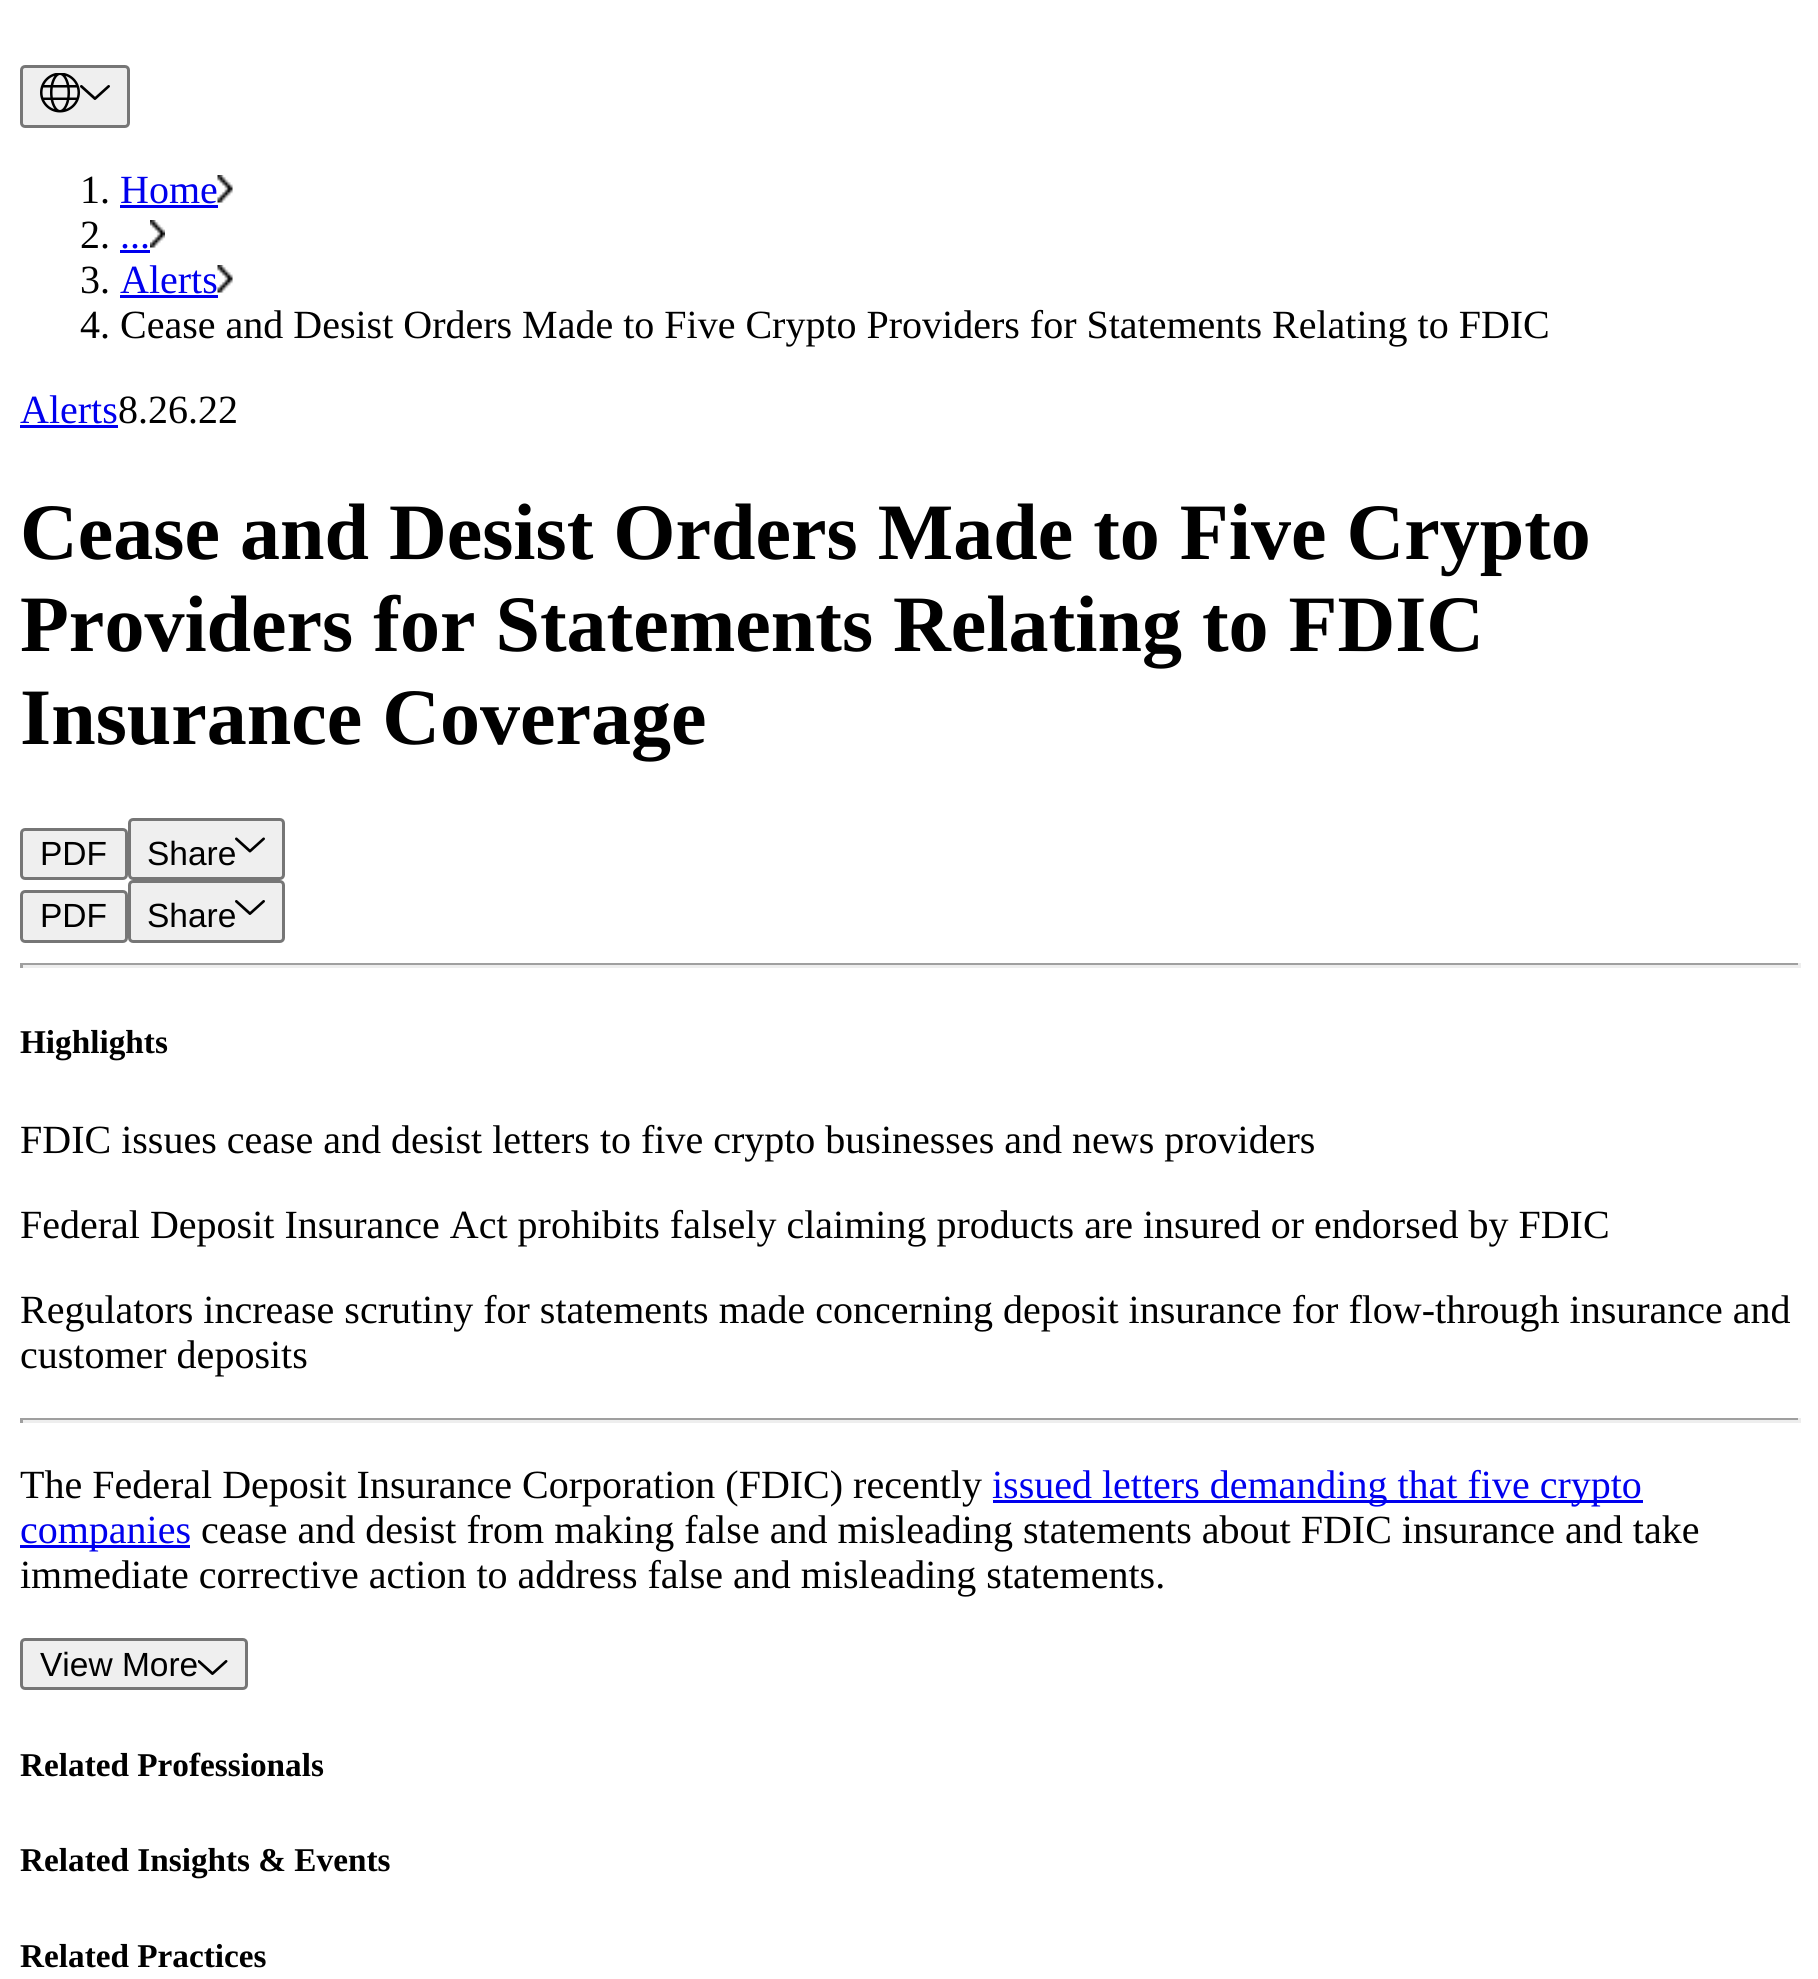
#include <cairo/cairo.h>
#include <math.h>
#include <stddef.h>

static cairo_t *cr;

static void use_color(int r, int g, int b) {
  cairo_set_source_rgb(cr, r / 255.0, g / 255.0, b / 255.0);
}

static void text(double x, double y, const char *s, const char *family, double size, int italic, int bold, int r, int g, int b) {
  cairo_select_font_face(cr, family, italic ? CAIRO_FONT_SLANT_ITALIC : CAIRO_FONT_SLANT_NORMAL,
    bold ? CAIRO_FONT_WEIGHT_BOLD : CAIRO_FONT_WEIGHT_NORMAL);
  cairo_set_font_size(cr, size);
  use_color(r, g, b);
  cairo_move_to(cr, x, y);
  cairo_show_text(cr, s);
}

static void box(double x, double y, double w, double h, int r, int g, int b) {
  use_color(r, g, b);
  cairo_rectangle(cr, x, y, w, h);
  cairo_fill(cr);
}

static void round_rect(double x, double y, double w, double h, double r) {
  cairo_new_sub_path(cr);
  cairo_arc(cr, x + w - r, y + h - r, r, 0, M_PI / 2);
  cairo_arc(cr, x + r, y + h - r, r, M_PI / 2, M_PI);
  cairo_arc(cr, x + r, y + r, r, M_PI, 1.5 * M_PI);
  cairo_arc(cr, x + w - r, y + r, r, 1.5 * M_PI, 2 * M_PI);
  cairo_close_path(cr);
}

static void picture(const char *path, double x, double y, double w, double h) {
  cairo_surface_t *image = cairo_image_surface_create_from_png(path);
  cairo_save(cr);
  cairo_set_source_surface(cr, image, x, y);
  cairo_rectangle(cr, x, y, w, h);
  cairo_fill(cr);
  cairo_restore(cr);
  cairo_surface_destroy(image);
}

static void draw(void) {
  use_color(255, 255, 255);
  cairo_paint(cr);
  use_color(239, 239, 239);
  round_rect(21.5, 66.5, 107, 60, 3.5);
  cairo_fill_preserve(cr);
  use_color(118, 118, 118);
  cairo_set_line_width(cr, 3);
  cairo_stroke(cr);
  picture("img_01.png", 40, 73, 40, 40);
  picture("img_02.png", 80, 85, 30, 15);
  box(120, 205, 98, 3, 0, 0, 238);
  picture("img_03.png", 217, 175, 16, 28);
  box(120, 250, 30, 3, 0, 0, 238);
  picture("img_04.png", 150, 220, 15, 28);
  box(120, 295, 98, 3, 0, 0, 238);
  picture("img_03.png", 217, 265, 16, 28);
  box(20, 425, 98, 3, 0, 0, 238);
  use_color(239, 239, 239);
  round_rect(21.5, 829.5, 105, 49, 3.5);
  cairo_fill_preserve(cr);
  use_color(118, 118, 118);
  cairo_stroke(cr);
  use_color(239, 239, 239);
  round_rect(129.5, 819.5, 154, 59, 3.5);
  cairo_fill_preserve(cr);
  use_color(118, 118, 118);
  cairo_stroke(cr);
  picture("img_05.png", 235, 837, 30, 16);
  use_color(239, 239, 239);
  round_rect(21.5, 891.5, 105, 50, 3.5);
  cairo_fill_preserve(cr);
  use_color(118, 118, 118);
  cairo_stroke(cr);
  use_color(239, 239, 239);
  round_rect(129.5, 881.5, 154, 60, 3.5);
  cairo_fill_preserve(cr);
  use_color(118, 118, 118);
  cairo_stroke(cr);
  picture("img_02.png", 235, 900, 30, 15);
  box(20, 963, 1780, 2, 159, 159, 159);
  box(1798, 963, 3, 5, 238, 238, 238);
  box(20, 965, 1780, 3, 238, 238, 238);
  box(20, 963, 3, 5, 159, 159, 159);
  box(20, 1418, 1780, 2, 159, 159, 159);
  box(1798, 1418, 3, 5, 238, 238, 238);
  box(20, 1420, 1780, 3, 238, 238, 238);
  box(20, 1418, 3, 5, 159, 159, 159);
  box(993, 1500, 650, 3, 0, 0, 238);
  box(20, 1545, 170, 3, 0, 0, 238);
  use_color(239, 239, 239);
  round_rect(21.5, 1639.5, 225, 49, 3.5);
  cairo_fill_preserve(cr);
  use_color(118, 118, 118);
  cairo_stroke(cr);
  picture("img_06.png", 198, 1660, 30, 15);
  text(80, 203, "1.", "Liberation Serif", 40, 0, 0, 0, 0, 0);
  text(120, 203, "Home", "Liberation Serif", 40, 0, 0, 0, 0, 238);
  text(80, 248, "2.", "Liberation Serif", 40, 0, 0, 0, 0, 0);
  text(120, 248, "...", "Liberation Serif", 40, 0, 0, 0, 0, 238);
  text(80, 293, "3.", "Liberation Serif", 40, 0, 0, 0, 0, 0);
  text(120, 293, "Alerts", "Liberation Serif", 40, 0, 0, 0, 0, 238);
  text(80, 338, "4. Cease and Desist Orders Made to Five Crypto Providers for Statements Relating to FDIC", "Liberation Serif", 40, 0, 0, 0, 0, 0);
  text(20, 423, "Alerts", "Liberation Serif", 40, 0, 0, 0, 0, 238);
  text(118, 423, "8.26.22", "Liberation Serif", 40, 0, 0, 0, 0, 0);
  text(20, 559, "Cease and Desist Orders Made to Five Crypto", "Liberation Serif", 80, 0, 1, 0, 0, 0);
  text(20, 651, "Providers for Statements Relating to FDIC", "Liberation Serif", 80, 0, 1, 0, 0, 0);
  text(20, 744, "Insurance Coverage", "Liberation Serif", 80, 0, 1, 0, 0, 0);
  text(40, 865, "PDF", "Liberation Sans", 33.5, 0, 0, 0, 0, 0);
  text(147, 865, "Share", "Liberation Sans", 33.5, 0, 0, 0, 0, 0);
  text(40, 927, "PDF", "Liberation Sans", 33.5, 0, 0, 0, 0, 0);
  text(147, 927, "Share", "Liberation Sans", 33.5, 0, 0, 0, 0, 0);
  text(20, 1053, "Highlights", "Liberation Serif", 33.25, 0, 1, 0, 0, 0);
  text(20, 1153, "FDIC issues cease and desist letters to five crypto businesses and news providers", "Liberation Serif", 40, 0, 0, 0, 0, 0);
  text(20, 1238, "Federal Deposit Insurance Act prohibits falsely claiming products are insured or endorsed by FDIC", "Liberation Serif", 40, 0, 0, 0, 0, 0);
  text(20, 1323, "Regulators increase scrutiny for statements made concerning deposit insurance for flow-through insurance and", "Liberation Serif", 40, 0, 0, 0, 0, 0);
  text(20, 1368, "customer deposits", "Liberation Serif", 40, 0, 0, 0, 0, 0);
  text(20, 1498, "The Federal Deposit Insurance Corporation (FDIC) recently", "Liberation Serif", 40, 0, 0, 0, 0, 0);
  text(992, 1498, "issued letters demanding that five crypto", "Liberation Serif", 40, 0, 0, 0, 0, 238);
  text(20, 1543, "companies", "Liberation Serif", 40, 0, 0, 0, 0, 238);
  text(201, 1543, "cease and desist from making false and misleading statements about FDIC insurance and take", "Liberation Serif", 40, 0, 0, 0, 0, 0);
  text(20, 1588, "immediate corrective action to address false and misleading statements.", "Liberation Serif", 40, 0, 0, 0, 0, 0);
  text(40, 1676, "View More", "Liberation Sans", 33.5, 0, 0, 0, 0, 0);
  text(20, 1776, "Related Professionals", "Liberation Serif", 33.25, 0, 1, 0, 0, 0);
  text(20, 1871, "Related Insights & Events", "Liberation Serif", 33.25, 0, 1, 0, 0, 0);
  text(20, 1967, "Related Practices", "Liberation Serif", 33.25, 0, 1, 0, 0, 0);
}

int main(void) {
  cairo_surface_t *surface = cairo_image_surface_create(CAIRO_FORMAT_RGB24, 1818, 1979);
  cr = cairo_create(surface);
  cairo_font_options_t *options = cairo_font_options_create();
  cairo_font_options_set_hint_metrics(options, CAIRO_HINT_METRICS_OFF);
  cairo_font_options_set_hint_style(options, CAIRO_HINT_STYLE_NONE);
  cairo_set_font_options(cr, options);
  cairo_set_miter_limit(cr, 4);
  draw();
  cairo_surface_write_to_png(surface, "out.png");
  cairo_font_options_destroy(options);
  cairo_destroy(cr);
  cairo_surface_destroy(surface);
  return 0;
}
